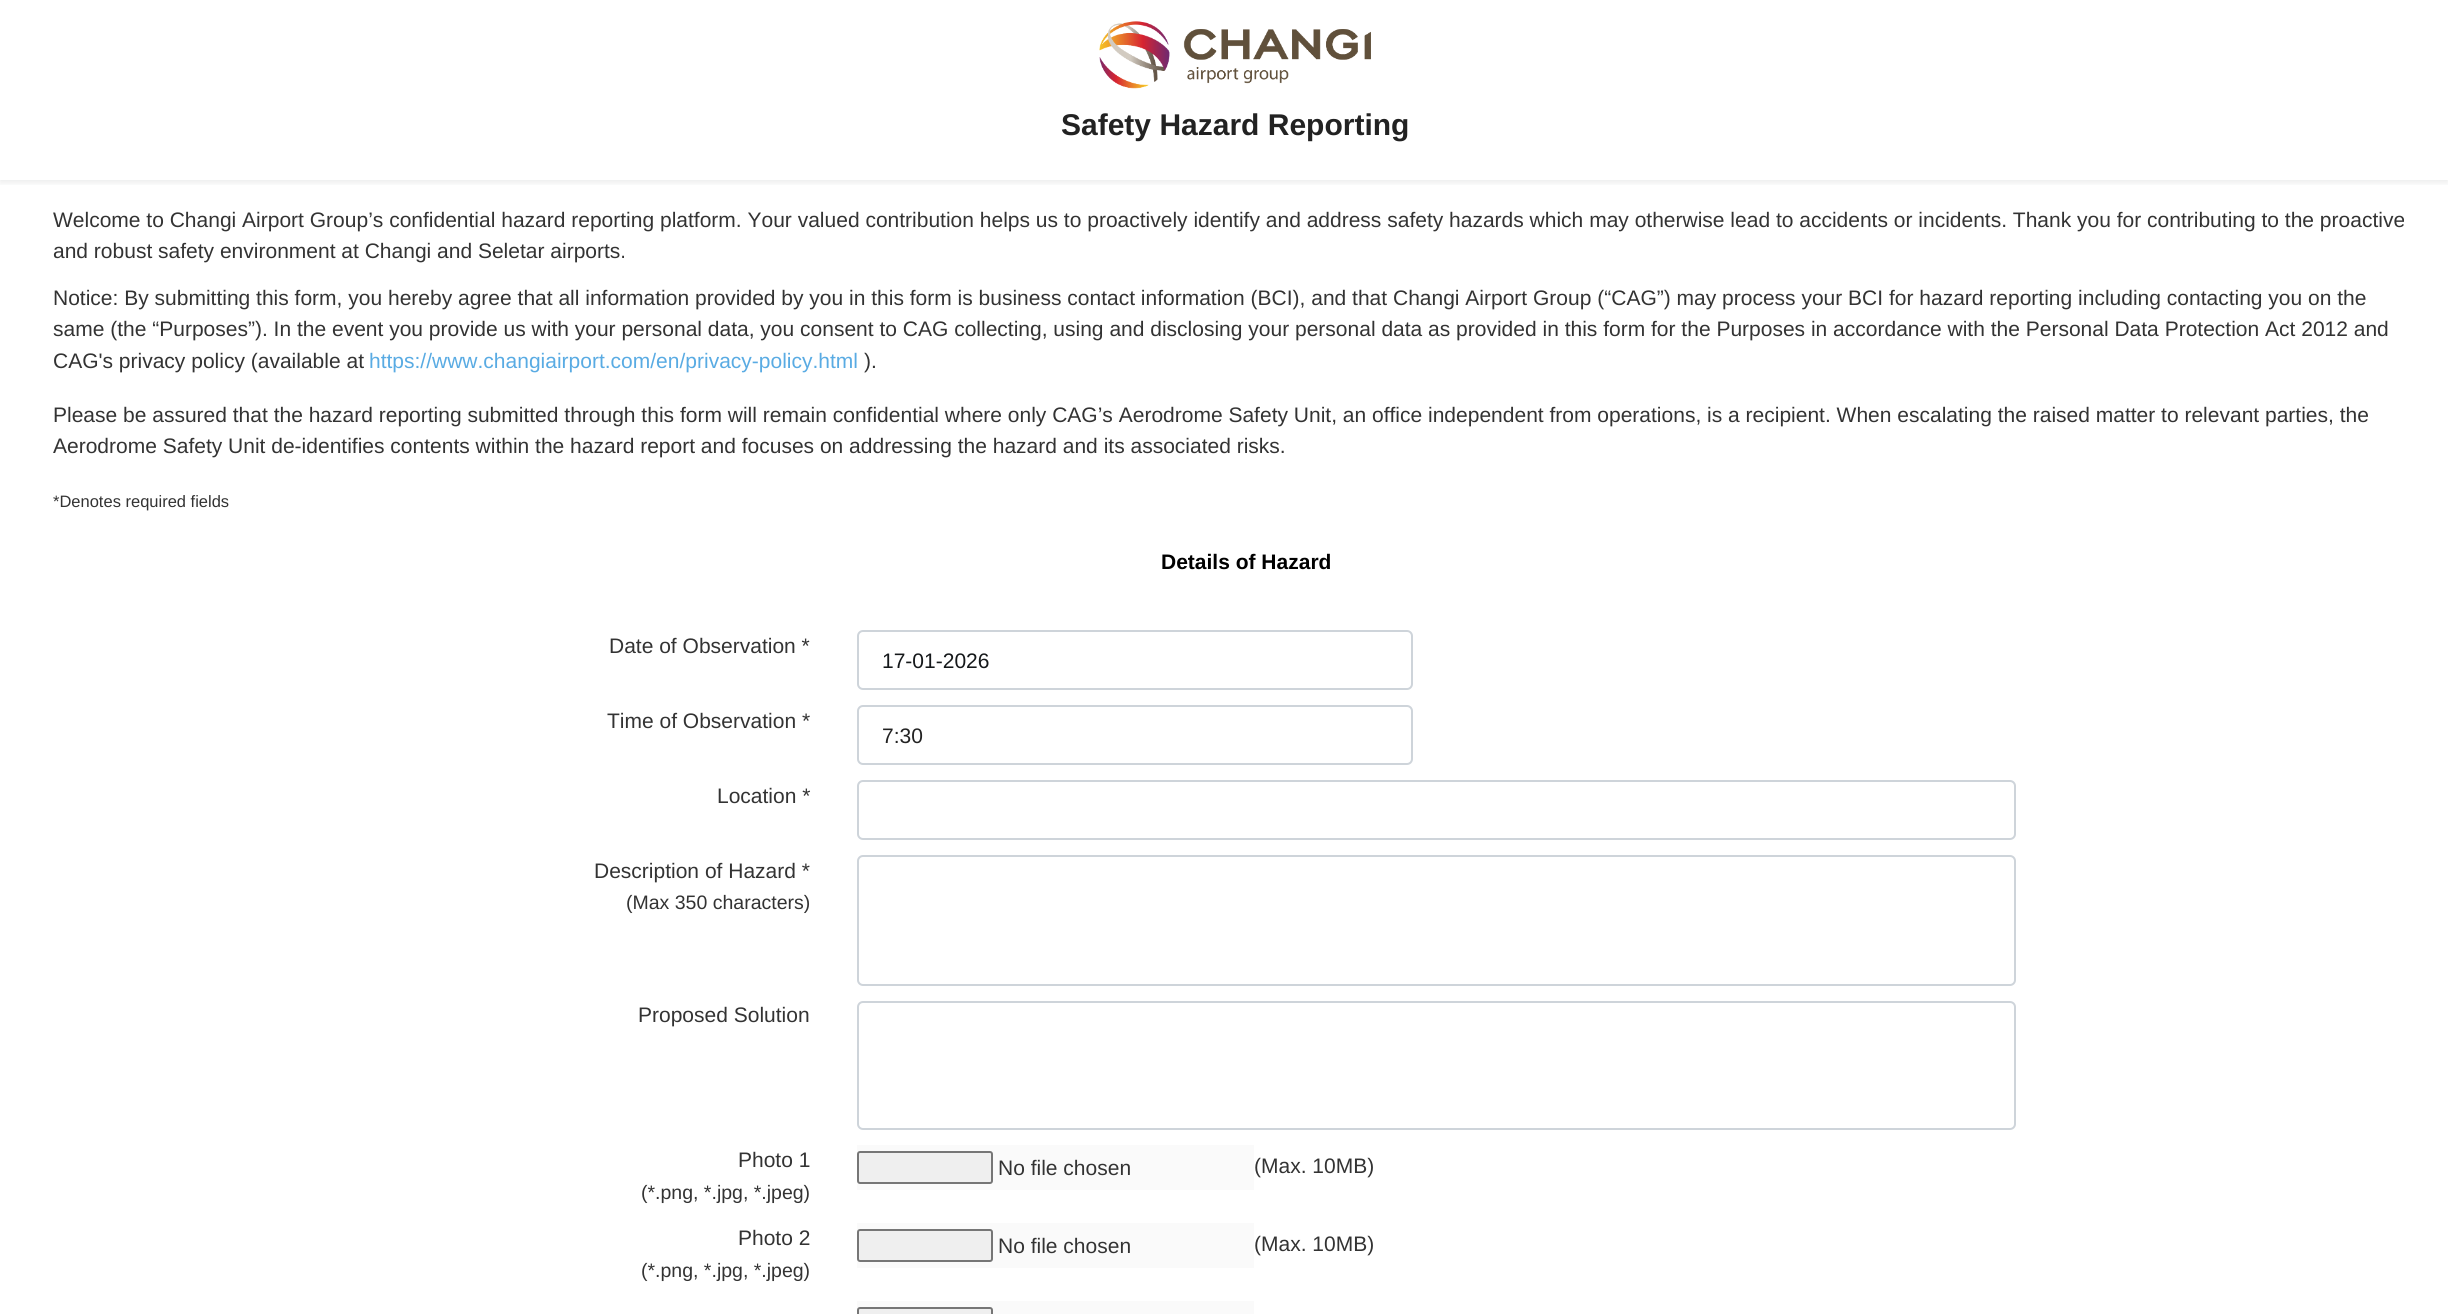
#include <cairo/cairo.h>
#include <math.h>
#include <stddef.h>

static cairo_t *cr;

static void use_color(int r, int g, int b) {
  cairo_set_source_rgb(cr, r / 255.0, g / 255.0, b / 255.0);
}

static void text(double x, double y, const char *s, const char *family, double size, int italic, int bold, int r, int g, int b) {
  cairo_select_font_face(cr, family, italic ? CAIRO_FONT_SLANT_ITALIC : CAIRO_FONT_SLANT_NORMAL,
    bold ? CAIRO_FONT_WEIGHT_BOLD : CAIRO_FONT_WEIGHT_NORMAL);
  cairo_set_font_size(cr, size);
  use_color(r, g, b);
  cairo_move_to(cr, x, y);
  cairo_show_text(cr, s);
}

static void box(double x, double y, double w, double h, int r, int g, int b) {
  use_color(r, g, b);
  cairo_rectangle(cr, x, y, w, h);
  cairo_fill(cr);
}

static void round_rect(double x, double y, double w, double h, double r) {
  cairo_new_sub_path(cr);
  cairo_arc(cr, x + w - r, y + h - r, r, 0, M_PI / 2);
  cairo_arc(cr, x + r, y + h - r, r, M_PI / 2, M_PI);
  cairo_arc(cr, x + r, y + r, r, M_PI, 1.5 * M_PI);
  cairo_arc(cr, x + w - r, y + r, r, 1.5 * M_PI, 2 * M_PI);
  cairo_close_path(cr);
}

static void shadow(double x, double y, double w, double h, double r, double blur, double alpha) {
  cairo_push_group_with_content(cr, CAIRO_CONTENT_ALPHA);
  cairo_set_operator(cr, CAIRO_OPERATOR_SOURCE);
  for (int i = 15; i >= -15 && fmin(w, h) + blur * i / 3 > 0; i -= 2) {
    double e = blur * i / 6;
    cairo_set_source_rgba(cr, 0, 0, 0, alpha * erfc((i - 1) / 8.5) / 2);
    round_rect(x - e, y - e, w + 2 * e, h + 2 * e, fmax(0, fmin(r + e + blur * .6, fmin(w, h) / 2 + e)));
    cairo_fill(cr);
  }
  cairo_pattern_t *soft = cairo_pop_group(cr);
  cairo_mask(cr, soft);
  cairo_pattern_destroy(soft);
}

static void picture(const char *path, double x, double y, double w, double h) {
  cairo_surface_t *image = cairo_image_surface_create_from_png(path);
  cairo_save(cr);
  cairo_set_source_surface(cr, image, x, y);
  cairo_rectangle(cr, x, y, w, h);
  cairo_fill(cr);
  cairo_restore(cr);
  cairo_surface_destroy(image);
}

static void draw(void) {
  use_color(255, 255, 255);
  cairo_paint(cr);
  cairo_save(cr);
  cairo_rectangle(cr, 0, 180, 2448, 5);
  cairo_clip(cr);
  use_color(21, 24, 26);
  shadow(0, 2, 2448, 180, 0, 4, 0.1);
  cairo_restore(cr);
  picture("img_01.png", 1099, 21, 272, 68);
  round_rect(858, 631, 554, 58, 5);
  use_color(206, 212, 218);
  cairo_stroke(cr);
  round_rect(858, 706, 554, 58, 5);
  cairo_stroke(cr);
  round_rect(858, 781, 1157, 58, 5);
  cairo_stroke(cr);
  round_rect(858, 856, 1157, 129, 5);
  cairo_stroke(cr);
  round_rect(858, 1002, 1157, 127, 5);
  cairo_stroke(cr);
  box(857, 1145, 397, 45, 250, 250, 250);
  use_color(239, 239, 239);
  round_rect(858, 1152, 134, 31, 2);
  cairo_fill_preserve(cr);
  use_color(118, 118, 118);
  cairo_stroke(cr);
  box(857, 1223, 397, 45, 250, 250, 250);
  use_color(239, 239, 239);
  round_rect(858, 1230, 134, 31, 2);
  cairo_fill_preserve(cr);
  use_color(118, 118, 118);
  cairo_stroke(cr);
  box(857, 1301, 397, 13, 250, 250, 250);
  use_color(239, 239, 239);
  round_rect(858, 1308, 134, 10, 2);
  cairo_fill_preserve(cr);
  use_color(118, 118, 118);
  cairo_stroke(cr);
  text(1061, 135, "Safety Hazard Reporting", "Liberation Sans", 30, 0, 1, 34, 34, 34);
  text(53, 227, "Welcome to Changi Airport Group’s confidential hazard reporting platform. Your valued contribution helps us to proactively identify and address safety hazards which may otherwise lead to accidents or incidents. Thank you for contributing to the proactive", "Liberation Sans", 21, 0, 0, 51, 51, 51);
  text(53, 258, "and robust safety environment at Changi and Seletar airports.", "Liberation Sans", 21, 0, 0, 51, 51, 51);
  text(53, 305, "Notice: By submitting this form, you hereby agree that all information provided by you in this form is business contact information (BCI), and that Changi Airport Group (“CAG”) may process your BCI for hazard reporting including contacting you on the", "Liberation Sans", 21, 0, 0, 51, 51, 51);
  text(53, 336, "same (the “Purposes”). In the event you provide us with your personal data, you consent to CAG collecting, using and disclosing your personal data as provided in this form for the Purposes in accordance with the Personal Data Protection Act 2012 and", "Liberation Sans", 21, 0, 0, 51, 51, 51);
  text(53, 368, "CAG's privacy policy (available at", "Liberation Sans", 21, 0, 0, 51, 51, 51);
  text(369, 368, "https://www.changiairport.com/en/privacy-policy.html", "Liberation Sans", 21, 0, 0, 89, 171, 227);
  text(864, 368, ").", "Liberation Sans", 21, 0, 0, 51, 51, 51);
  text(53, 422, "Please be assured that the hazard reporting submitted through this form will remain confidential where only CAG’s Aerodrome Safety Unit, an office independent from operations, is a recipient. When escalating the raised matter to relevant parties, the", "Liberation Sans", 21, 0, 0, 51, 51, 51);
  text(53, 453, "Aerodrome Safety Unit de-identifies contents within the hazard report and focuses on addressing the hazard and its associated risks.", "Liberation Sans", 21, 0, 0, 51, 51, 51);
  text(53, 507, "*Denotes required fields", "Liberation Sans", 16.5, 0, 0, 51, 51, 51);
  text(1161, 569, "Details of Hazard", "Liberation Sans", 21, 0, 1, 0, 0, 0);
  text(609, 653, "Date of Observation *", "Liberation Sans", 21, 0, 0, 51, 51, 51);
  text(882, 668, "17-01-2026", "Liberation Sans", 21, 0, 0, 21, 24, 26);
  text(607, 728, "Time of Observation *", "Liberation Sans", 21, 0, 0, 51, 51, 51);
  text(882, 743, "7:30", "Liberation Sans", 21, 0, 0, 34, 34, 34);
  text(717, 803, "Location *", "Liberation Sans", 21, 0, 0, 51, 51, 51);
  text(594, 878, "Description of Hazard *", "Liberation Sans", 21, 0, 0, 51, 51, 51);
  text(626, 909, "(Max 350 characters)", "Liberation Sans", 19.5, 0, 0, 51, 51, 51);
  text(638, 1022, "Proposed Solution", "Liberation Sans", 21, 0, 0, 51, 51, 51);
  text(738, 1167, "Photo 1", "Liberation Sans", 21, 0, 0, 51, 51, 51);
  text(641, 1199, "(*.png, *.jpg, *.jpeg)", "Liberation Sans", 19.5, 0, 0, 51, 51, 51);
  text(998, 1175, "No file chosen", "Liberation Sans", 21, 0, 0, 51, 51, 51);
  text(1254, 1173, "(Max. 10MB)", "Liberation Sans", 21, 0, 0, 51, 51, 51);
  text(738, 1245, "Photo 2", "Liberation Sans", 21, 0, 0, 51, 51, 51);
  text(641, 1277, "(*.png, *.jpg, *.jpeg)", "Liberation Sans", 19.5, 0, 0, 51, 51, 51);
  text(998, 1253, "No file chosen", "Liberation Sans", 21, 0, 0, 51, 51, 51);
  text(1254, 1251, "(Max. 10MB)", "Liberation Sans", 21, 0, 0, 51, 51, 51);
}

int main(void) {
  cairo_surface_t *surface = cairo_image_surface_create(CAIRO_FORMAT_RGB24, 2448, 1314);
  cr = cairo_create(surface);
  cairo_font_options_t *options = cairo_font_options_create();
  cairo_font_options_set_hint_metrics(options, CAIRO_HINT_METRICS_OFF);
  cairo_font_options_set_hint_style(options, CAIRO_HINT_STYLE_NONE);
  cairo_set_font_options(cr, options);
  cairo_set_miter_limit(cr, 4);
  draw();
  cairo_surface_write_to_png(surface, "out.png");
  cairo_font_options_destroy(options);
  cairo_destroy(cr);
  cairo_surface_destroy(surface);
  return 0;
}
